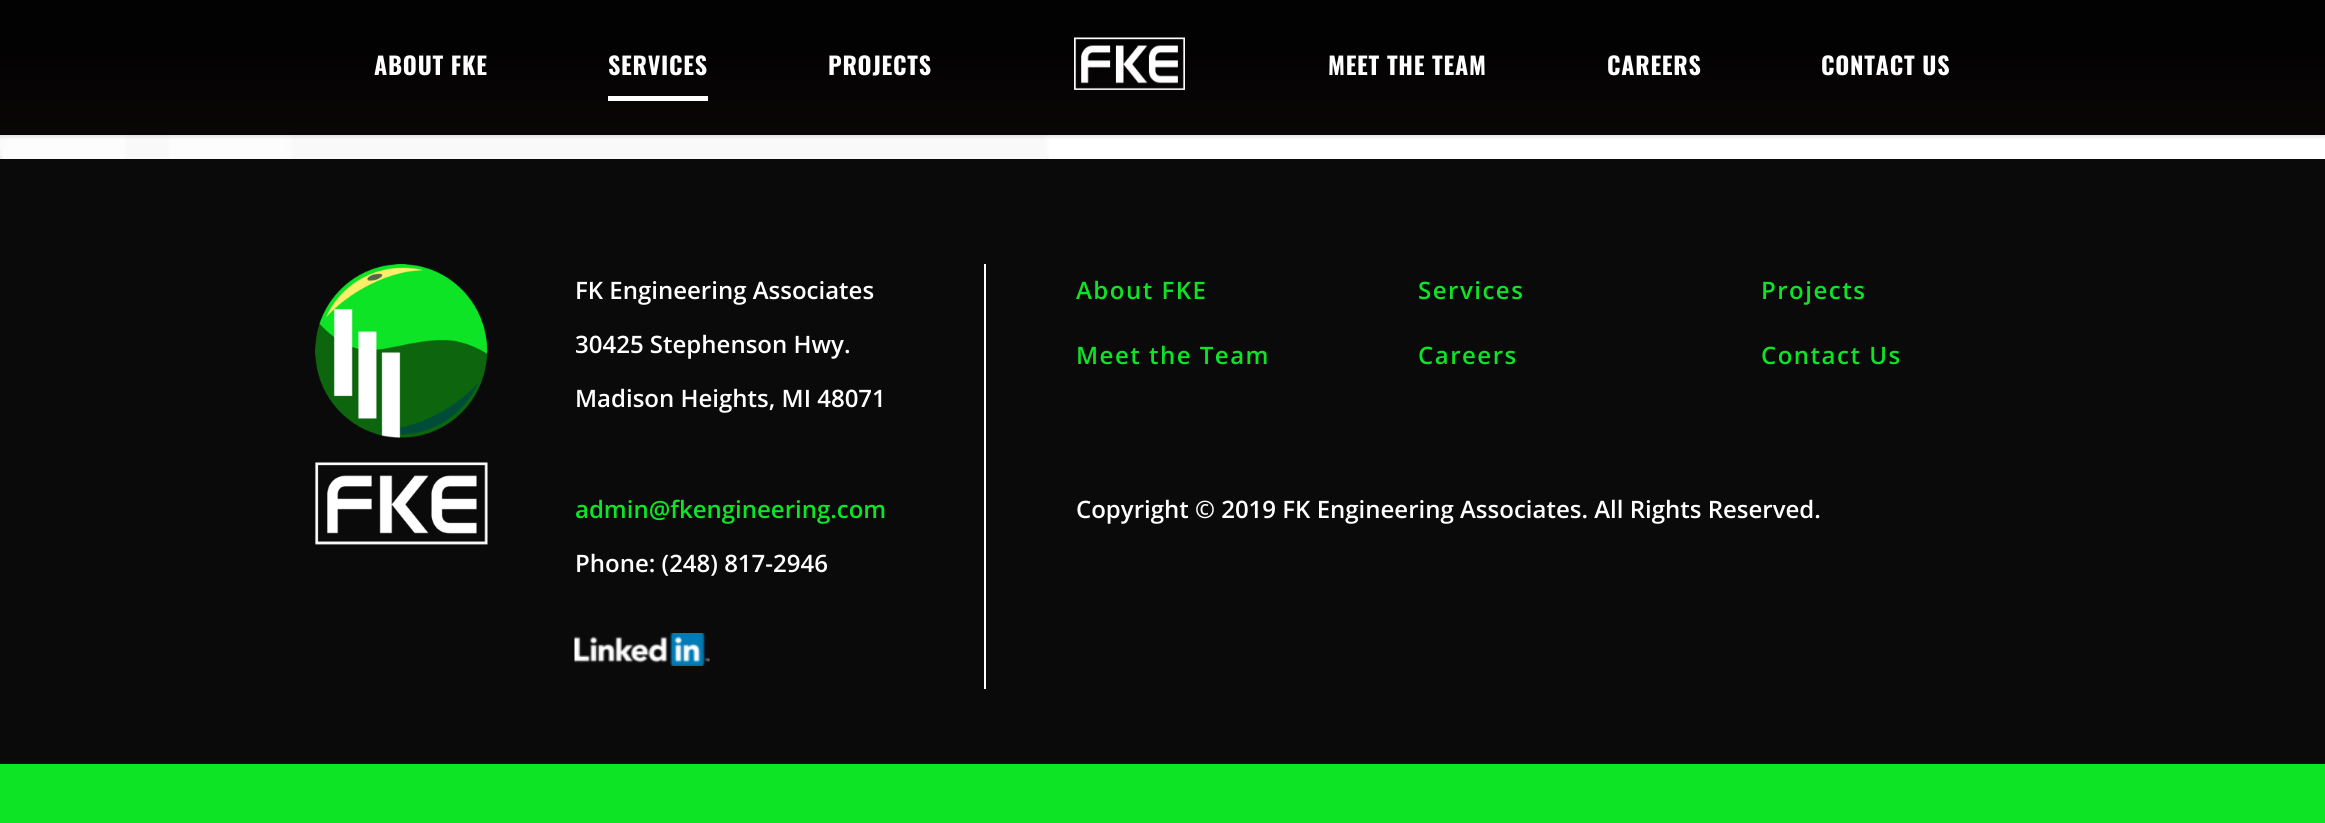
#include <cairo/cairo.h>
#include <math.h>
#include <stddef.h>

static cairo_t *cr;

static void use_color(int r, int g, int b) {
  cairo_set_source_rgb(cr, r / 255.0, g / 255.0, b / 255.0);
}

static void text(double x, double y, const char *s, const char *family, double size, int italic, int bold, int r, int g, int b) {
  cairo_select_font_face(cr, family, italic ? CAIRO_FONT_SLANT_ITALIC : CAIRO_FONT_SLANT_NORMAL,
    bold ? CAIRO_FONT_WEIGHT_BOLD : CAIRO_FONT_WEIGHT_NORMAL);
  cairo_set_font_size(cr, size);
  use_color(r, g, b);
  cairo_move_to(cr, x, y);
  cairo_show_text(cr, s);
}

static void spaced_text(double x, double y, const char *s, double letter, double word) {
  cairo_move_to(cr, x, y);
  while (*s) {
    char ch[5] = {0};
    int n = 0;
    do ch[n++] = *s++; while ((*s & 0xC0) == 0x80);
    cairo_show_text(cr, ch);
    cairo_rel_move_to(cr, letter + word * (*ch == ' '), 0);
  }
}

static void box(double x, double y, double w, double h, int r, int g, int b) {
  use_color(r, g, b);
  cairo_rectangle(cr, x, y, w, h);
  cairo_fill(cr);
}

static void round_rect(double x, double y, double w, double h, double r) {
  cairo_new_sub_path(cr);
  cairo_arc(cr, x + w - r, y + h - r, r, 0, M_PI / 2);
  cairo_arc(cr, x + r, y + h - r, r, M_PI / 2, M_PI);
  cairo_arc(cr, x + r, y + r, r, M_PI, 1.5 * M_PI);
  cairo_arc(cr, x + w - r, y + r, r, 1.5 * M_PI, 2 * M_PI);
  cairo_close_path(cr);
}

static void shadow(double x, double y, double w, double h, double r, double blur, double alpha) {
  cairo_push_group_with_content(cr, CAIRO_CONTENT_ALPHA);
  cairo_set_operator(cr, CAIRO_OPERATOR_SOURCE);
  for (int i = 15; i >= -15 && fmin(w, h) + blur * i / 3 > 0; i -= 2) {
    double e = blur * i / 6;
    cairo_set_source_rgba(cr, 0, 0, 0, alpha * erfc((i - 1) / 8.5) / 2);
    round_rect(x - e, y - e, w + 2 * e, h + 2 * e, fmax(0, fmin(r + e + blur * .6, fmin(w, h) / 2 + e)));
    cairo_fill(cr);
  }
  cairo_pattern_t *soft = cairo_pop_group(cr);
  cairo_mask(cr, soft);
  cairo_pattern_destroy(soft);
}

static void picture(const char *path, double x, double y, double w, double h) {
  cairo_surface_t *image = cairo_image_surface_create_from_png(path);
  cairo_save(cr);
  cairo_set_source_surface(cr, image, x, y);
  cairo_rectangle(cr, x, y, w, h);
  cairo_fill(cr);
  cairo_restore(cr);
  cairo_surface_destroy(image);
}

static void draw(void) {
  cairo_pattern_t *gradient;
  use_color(255, 255, 255);
  cairo_paint(cr);
  picture("img_02.png", 0, 135, 1049, 24);
  use_color(0, 0, 0);
  shadow(0, 2, 2325, 135, 0, 1.5, 0.1);
  gradient = cairo_pattern_create_linear(1163, 0, 1163, 135);
  cairo_pattern_add_color_stop_rgba(gradient, 0, 0.012, 0.008, 0.008, 1);
  cairo_pattern_add_color_stop_rgba(gradient, 0.37, 0.012, 0.008, 0.008, 1);
  cairo_pattern_add_color_stop_rgba(gradient, 1, 0.039, 0.024, 0.027, 1);
  cairo_set_source(cr, gradient);
  cairo_pattern_destroy(gradient);
  cairo_rectangle(cr, 0, 0, 2325, 135);
  cairo_fill(cr);
  box(608, 96, 100, 5, 255, 255, 255);
  picture("img_01.png", 1074, 37, 111, 53);
  box(0, 159, 2325, 605, 10, 10, 10);
  picture("img_03.png", 315, 264, 173, 281);
  picture("img_04.png", 574, 633, 136, 33);
  box(984, 264, 2, 425, 255, 255, 255);
  box(0, 764, 2325, 59, 12, 228, 37);
  cairo_select_font_face(cr, "Oswald", CAIRO_FONT_SLANT_NORMAL, CAIRO_FONT_WEIGHT_BOLD);
  cairo_set_font_size(cr, 24);
  use_color(255, 255, 255);
  spaced_text(374, 75, "ABOUT FKE", 0.75, 0);
  spaced_text(608, 75, "SERVICES", 0.75, 0);
  spaced_text(828, 75, "PROJECTS", 0.75, 0);
  spaced_text(1328, 75, "MEET THE TEAM", 0.75, 0);
  spaced_text(1607, 75, "CAREERS", 0.75, 0);
  spaced_text(1821, 75, "CONTACT US", 0.75, 0);
  text(575, 299, "FK Engineering Associates", "Open Sans SemiBold", 24, 0, 0, 255, 255, 255);
  text(575, 353, "30425 Stephenson Hwy.", "Open Sans SemiBold", 24, 0, 0, 255, 255, 255);
  text(575, 407, "Madison Heights, MI 48071", "Open Sans SemiBold", 24, 0, 0, 255, 255, 255);
  text(575, 518, "admin@fkengineering.com", "Open Sans SemiBold", 24, 0, 0, 12, 228, 37);
  text(575, 572, "Phone: (248) 817-2946", "Open Sans SemiBold", 24, 0, 0, 255, 255, 255);
  use_color(12, 228, 37);
  spaced_text(1076, 299, "About FKE", 1.5, 0);
  spaced_text(1418, 299, "Services", 1.5, 0);
  spaced_text(1761, 299, "Projects", 1.5, 0);
  spaced_text(1076, 364, "Meet the Team", 1.5, 0);
  spaced_text(1418, 364, "Careers", 1.5, 0);
  spaced_text(1761, 364, "Contact Us", 1.5, 0);
  text(1076, 518, "Copyright © 2019 FK Engineering Associates. All Rights Reserved.", "Open Sans SemiBold", 24, 0, 0, 255, 255, 255);
}

int main(void) {
  cairo_surface_t *surface = cairo_image_surface_create(CAIRO_FORMAT_RGB24, 2325, 823);
  cr = cairo_create(surface);
  cairo_font_options_t *options = cairo_font_options_create();
  cairo_font_options_set_hint_metrics(options, CAIRO_HINT_METRICS_OFF);
  cairo_font_options_set_hint_style(options, CAIRO_HINT_STYLE_NONE);
  cairo_set_font_options(cr, options);
  cairo_set_miter_limit(cr, 4);
  draw();
  cairo_surface_write_to_png(surface, "out.png");
  cairo_font_options_destroy(options);
  cairo_destroy(cr);
  cairo_surface_destroy(surface);
  return 0;
}
